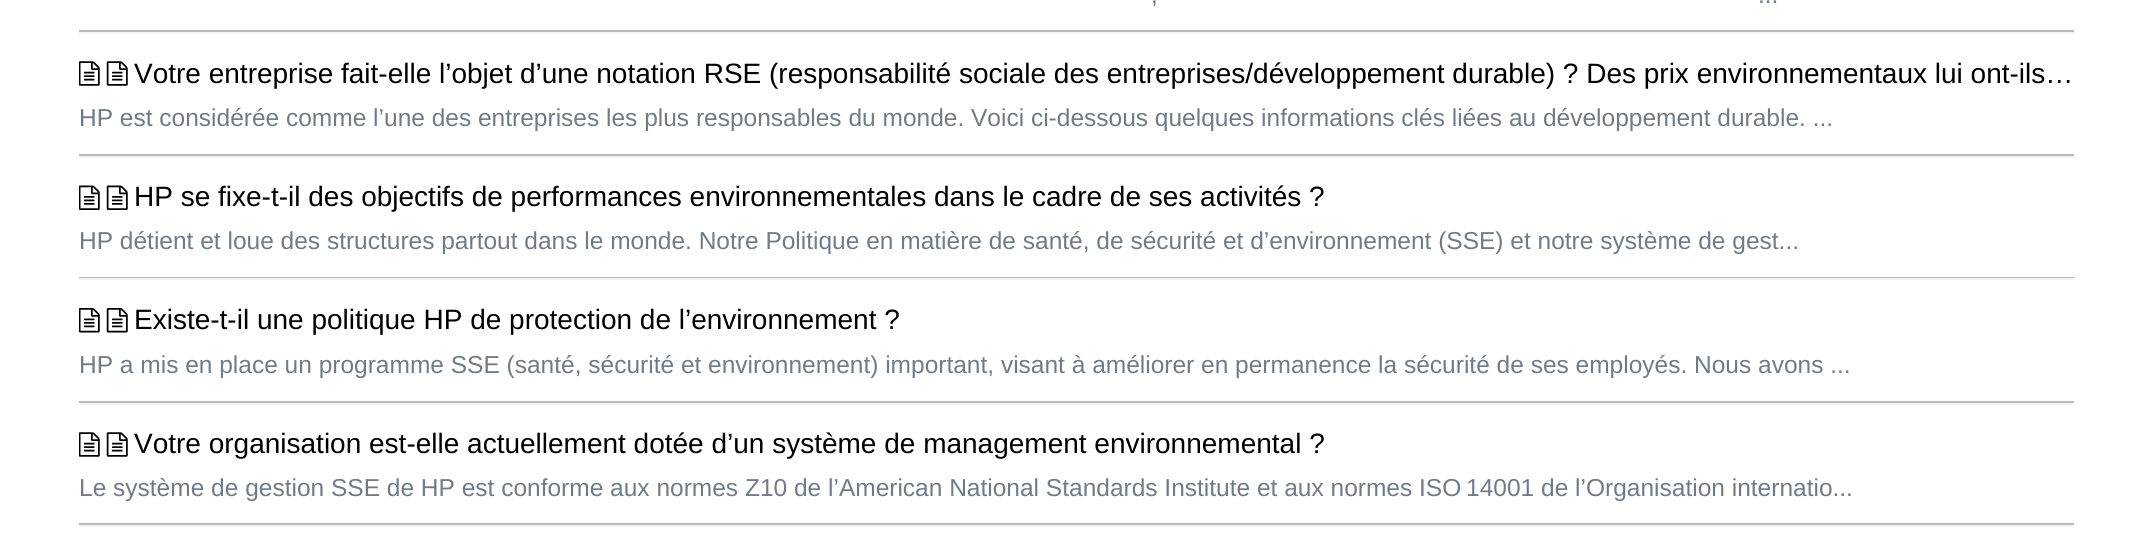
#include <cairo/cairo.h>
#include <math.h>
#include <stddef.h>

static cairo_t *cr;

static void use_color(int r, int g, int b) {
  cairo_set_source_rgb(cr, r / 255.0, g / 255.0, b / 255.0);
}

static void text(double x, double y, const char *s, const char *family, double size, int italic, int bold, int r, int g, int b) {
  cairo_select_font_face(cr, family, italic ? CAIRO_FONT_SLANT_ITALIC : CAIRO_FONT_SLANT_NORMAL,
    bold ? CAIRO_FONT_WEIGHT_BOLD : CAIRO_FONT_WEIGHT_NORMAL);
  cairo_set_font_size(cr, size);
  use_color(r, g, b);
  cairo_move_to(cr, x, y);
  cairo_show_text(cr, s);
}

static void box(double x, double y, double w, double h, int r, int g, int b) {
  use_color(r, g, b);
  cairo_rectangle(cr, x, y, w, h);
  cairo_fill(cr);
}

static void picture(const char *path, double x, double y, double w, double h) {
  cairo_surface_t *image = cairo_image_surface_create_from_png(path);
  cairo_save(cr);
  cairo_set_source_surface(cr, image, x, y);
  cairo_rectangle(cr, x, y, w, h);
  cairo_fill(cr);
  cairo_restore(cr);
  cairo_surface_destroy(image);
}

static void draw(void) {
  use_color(255, 255, 255);
  cairo_paint(cr);
  box(79, 30, 1995, 2, 187, 184, 184);
  box(79, 32, 1995, 2, 243, 243, 243);
  box(79, 154, 1995, 2, 187, 184, 184);
  picture("img_01.png", 79, 61, 21, 25);
  picture("img_02.png", 106, 61, 22, 25);
  box(79, 156, 1995, 2, 243, 243, 243);
  box(79, 277, 1995, 1, 187, 184, 184);
  picture("img_03.png", 79, 185, 21, 25);
  picture("img_04.png", 106, 185, 22, 25);
  box(79, 278, 1995, 2, 243, 243, 243);
  box(79, 401, 1995, 2, 187, 184, 184);
  picture("img_05.png", 79, 308, 21, 25);
  picture("img_06.png", 106, 308, 22, 25);
  box(79, 403, 1995, 2, 243, 243, 243);
  box(79, 523, 1995, 2, 187, 184, 184);
  picture("img_01.png", 79, 432, 21, 25);
  picture("img_02.png", 106, 432, 22, 25);
  box(79, 525, 1995, 2, 243, 243, 243);
  text(1151, 3, ",", "Liberation Sans", 24.5, 0, 0, 111, 124, 135);
  text(1758, 3, "...", "Liberation Sans", 24.5, 0, 0, 111, 124, 135);
  text(134, 83, "Votre entreprise fait-elle l’objet d’une notation RSE (responsabilité sociale des entreprises/développement durable) ? Des prix environnementaux lui ont-ils…", "Liberation Sans", 28, 0, 0, 0, 0, 0);
  text(79, 126, "HP est considérée comme l’une des entreprises les plus responsables du monde. Voici ci-dessous quelques informations clés liées au développement durable. ...", "Liberation Sans", 24.5, 0, 0, 111, 124, 135);
  text(134, 206, "HP se fixe-t-il des objectifs de performances environnementales dans le cadre de ses activités ?", "Liberation Sans", 28, 0, 0, 0, 0, 0);
  text(79, 249, "HP détient et loue des structures partout dans le monde. Notre Politique en matière de santé, de sécurité et d’environnement (SSE) et notre système de gest...", "Liberation Sans", 24.5, 0, 0, 111, 124, 135);
  text(134, 329, "Existe-t-il une politique HP de protection de l’environnement ?", "Liberation Sans", 28, 0, 0, 0, 0, 0);
  text(79, 373, "HP a mis en place un programme SSE (santé, sécurité et environnement) important, visant à améliorer en permanence la sécurité de ses employés. Nous avons ...", "Liberation Sans", 24.5, 0, 0, 111, 124, 135);
  text(134, 453, "Votre organisation est-elle actuellement dotée d’un système de management environnemental ?", "Liberation Sans", 28, 0, 0, 0, 0, 0);
  text(79, 496, "Le système de gestion SSE de HP est conforme aux normes Z10 de l’American National Standards Institute et aux normes ISO 14001 de l’Organisation internatio...", "Liberation Sans", 24.5, 0, 0, 111, 124, 135);
}

int main(void) {
  cairo_surface_t *surface = cairo_image_surface_create(CAIRO_FORMAT_RGB24, 2152, 553);
  cr = cairo_create(surface);
  cairo_font_options_t *options = cairo_font_options_create();
  cairo_font_options_set_hint_metrics(options, CAIRO_HINT_METRICS_OFF);
  cairo_font_options_set_hint_style(options, CAIRO_HINT_STYLE_NONE);
  cairo_set_font_options(cr, options);
  cairo_set_miter_limit(cr, 4);
  draw();
  cairo_surface_write_to_png(surface, "out.png");
  cairo_font_options_destroy(options);
  cairo_destroy(cr);
  cairo_surface_destroy(surface);
  return 0;
}
